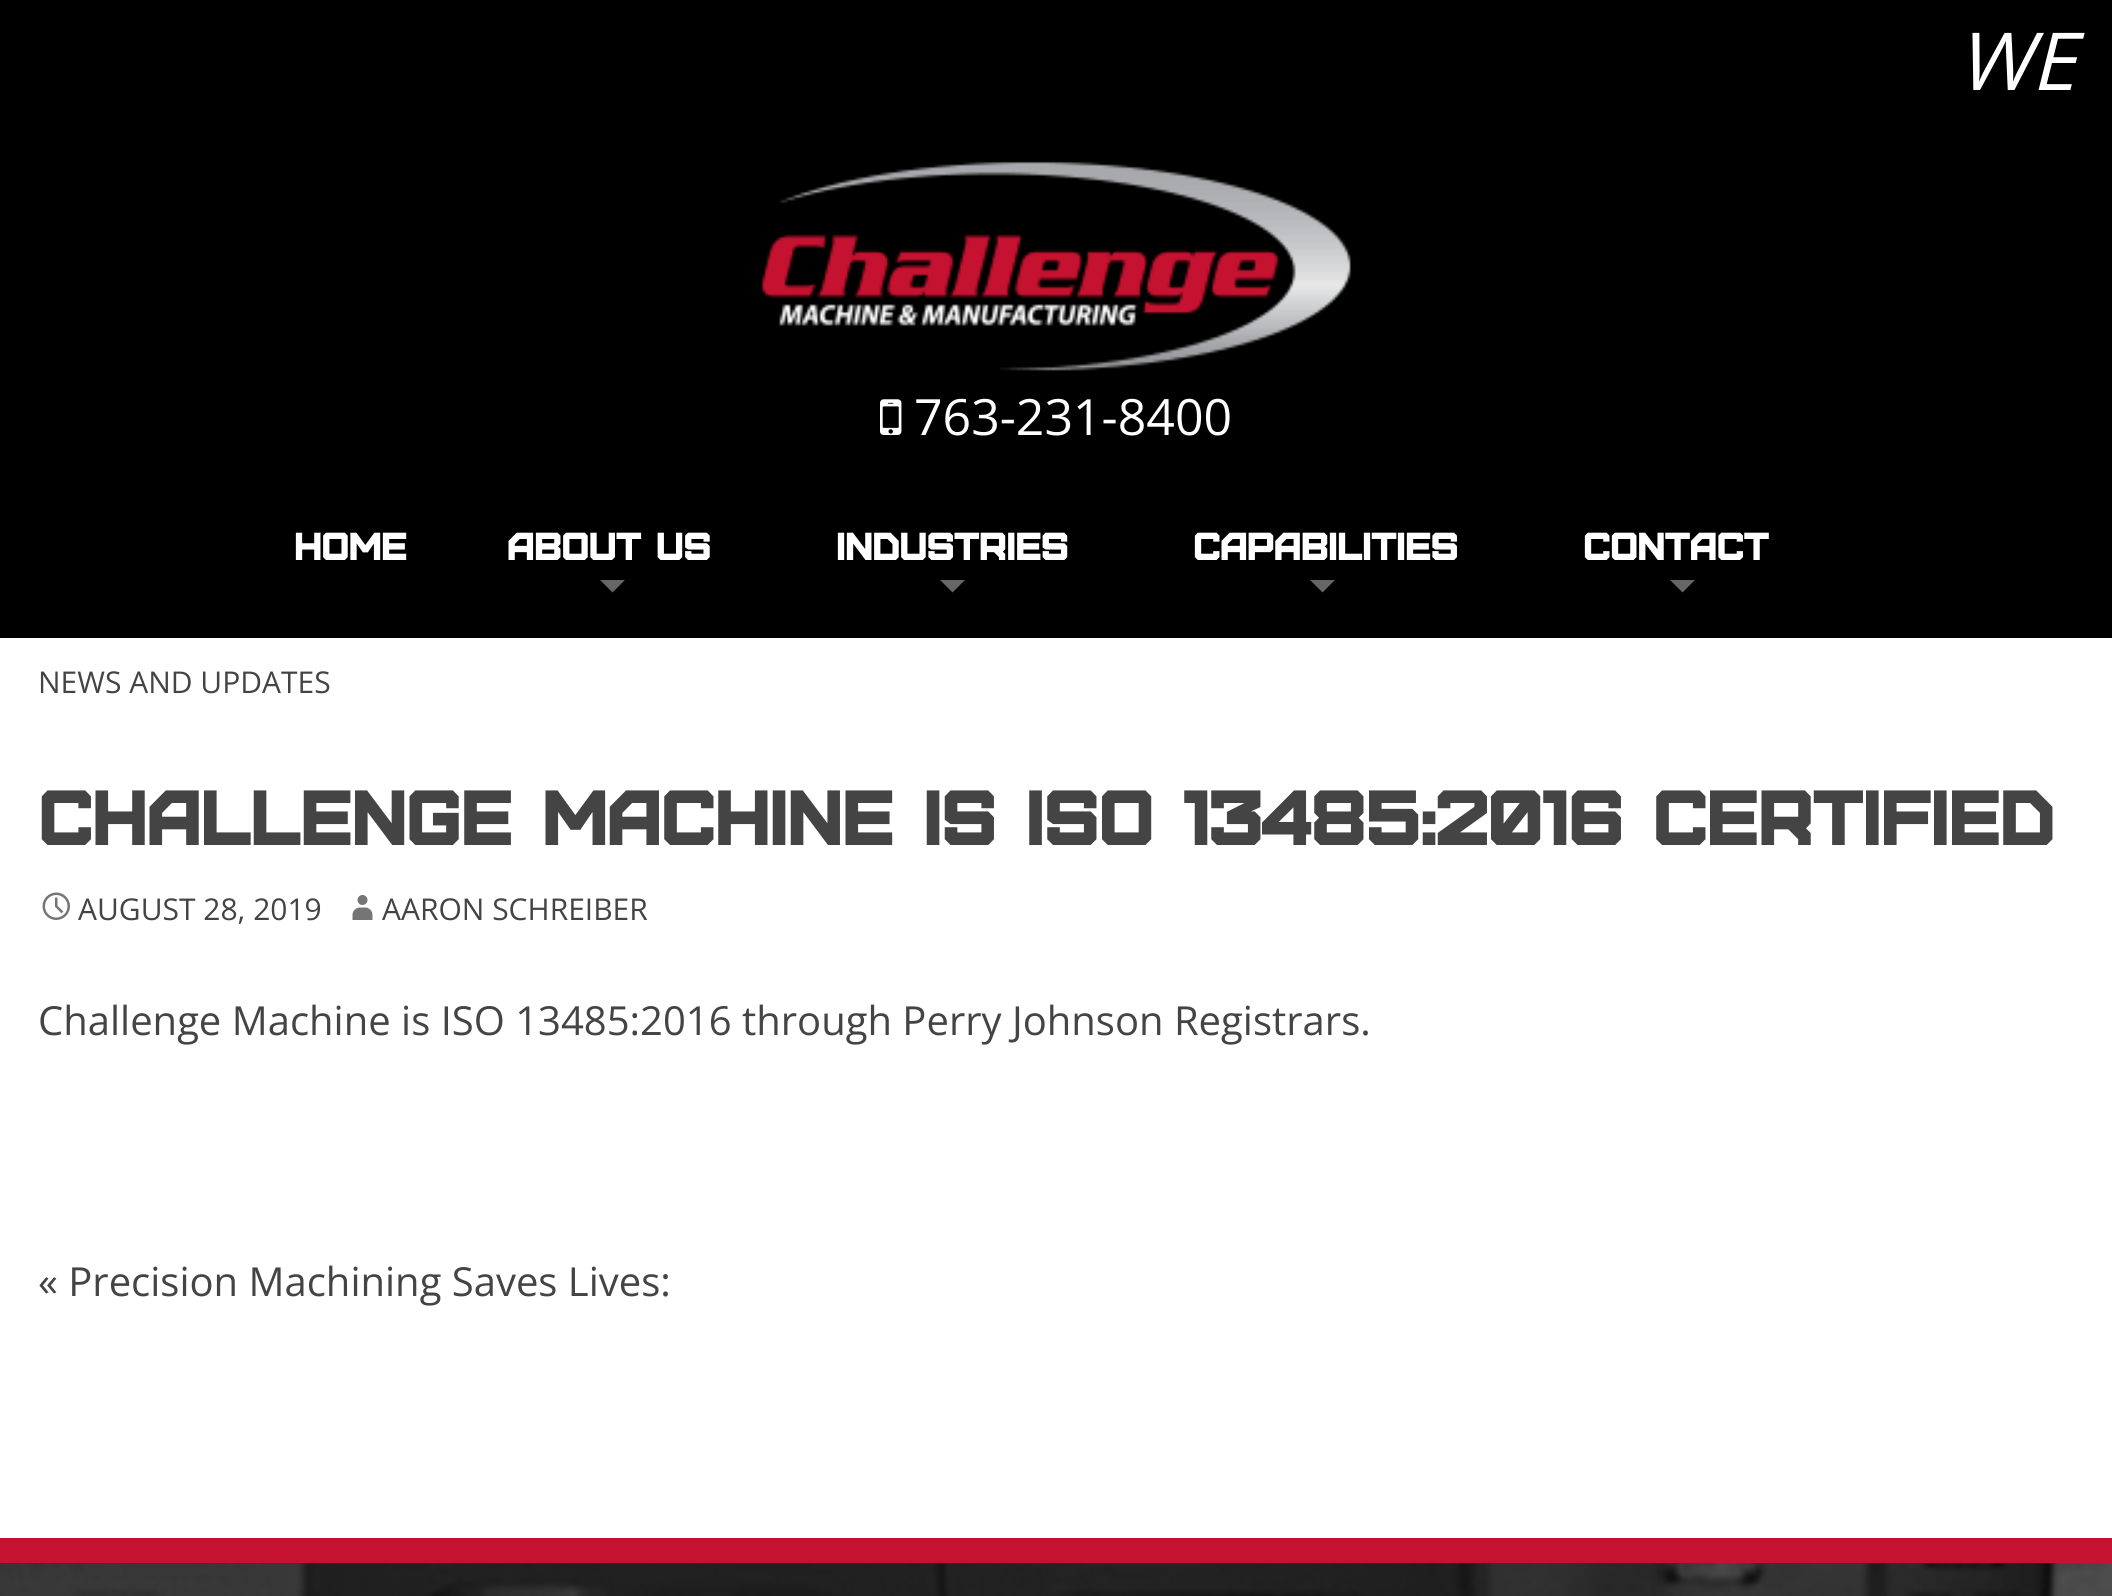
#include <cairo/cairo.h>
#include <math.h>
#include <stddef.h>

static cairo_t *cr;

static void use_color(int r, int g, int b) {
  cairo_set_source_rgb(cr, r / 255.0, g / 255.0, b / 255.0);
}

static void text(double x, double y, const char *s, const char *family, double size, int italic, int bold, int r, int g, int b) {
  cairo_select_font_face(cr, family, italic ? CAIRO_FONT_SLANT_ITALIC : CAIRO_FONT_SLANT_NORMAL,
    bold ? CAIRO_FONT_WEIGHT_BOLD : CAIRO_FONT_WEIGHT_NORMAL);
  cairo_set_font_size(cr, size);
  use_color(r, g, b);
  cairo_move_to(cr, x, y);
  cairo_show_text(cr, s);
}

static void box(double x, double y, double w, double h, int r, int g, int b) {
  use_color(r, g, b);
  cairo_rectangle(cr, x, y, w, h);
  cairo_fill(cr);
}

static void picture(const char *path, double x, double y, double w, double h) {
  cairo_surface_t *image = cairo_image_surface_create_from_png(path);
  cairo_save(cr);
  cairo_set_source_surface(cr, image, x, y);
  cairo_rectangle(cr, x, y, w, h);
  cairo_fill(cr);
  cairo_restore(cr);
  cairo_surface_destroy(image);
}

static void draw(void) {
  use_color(255, 255, 255);
  cairo_paint(cr);
  box(0, 0, 2112, 638, 0, 0, 0);
  picture("img_01.png", 761, 161, 590, 210);
  picture("img_02.png", 880, 399, 22, 36);
  use_color(102, 102, 102);
  cairo_new_path(cr);
  cairo_move_to(cr, 600, 580);
  cairo_line_to(cr, 625, 580);
  cairo_line_to(cr, 612.5, 592.5);
  cairo_close_path(cr);
  cairo_fill(cr);
  cairo_new_path(cr);
  cairo_move_to(cr, 940, 580);
  cairo_line_to(cr, 965, 580);
  cairo_line_to(cr, 952.5, 592.5);
  cairo_close_path(cr);
  cairo_fill(cr);
  cairo_new_path(cr);
  cairo_move_to(cr, 1310, 580);
  cairo_line_to(cr, 1335, 580);
  cairo_line_to(cr, 1322.5, 592.5);
  cairo_close_path(cr);
  cairo_fill(cr);
  cairo_new_path(cr);
  cairo_move_to(cr, 1670, 580);
  cairo_line_to(cr, 1695, 580);
  cairo_line_to(cr, 1682.5, 592.5);
  cairo_close_path(cr);
  cairo_fill(cr);
  box(0, 1538, 2112, 25, 196, 18, 48);
  picture("img_03.png", 42, 892, 28, 28);
  picture("img_04.png", 352, 895, 21, 25);
  picture("img_05.png", 0, 1563, 2112, 33);
  text(1957, 90, "WE", "Open Sans", 80, 1, 0, 255, 255, 255);
  text(914, 435, "763-231-8400", "Open Sans", 50, 0, 0, 255, 255, 255);
  text(294, 560, "Home", "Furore", 37.5, 0, 1, 255, 255, 255);
  text(507, 560, "About Us", "Furore", 37.5, 0, 1, 255, 255, 255);
  text(836, 560, "Industries", "Furore", 37.5, 0, 1, 255, 255, 255);
  text(1193, 560, "Capabilities", "Furore", 37.5, 0, 1, 255, 255, 255);
  text(1583, 560, "Contact", "Furore", 37.5, 0, 1, 255, 255, 255);
  text(38, 693, "NEWS AND UPDATES", "Open Sans", 30, 0, 0, 68, 68, 68);
  text(38, 845, "CHALLENGE MACHINE IS ISO 13485:2016 CERTIFIED", "Furore", 75, 0, 1, 68, 68, 68);
  text(78, 920, "AUGUST 28, 2019", "Open Sans", 30, 0, 0, 68, 68, 68);
  text(382, 920, "AARON SCHREIBER", "Open Sans", 30, 0, 0, 68, 68, 68);
  text(38, 1035, "Challenge Machine is ISO 13485:2016 through Perry Johnson Registrars.", "Open Sans", 40, 0, 0, 68, 68, 68);
  text(38, 1296, "« Precision Machining Saves Lives:", "Open Sans", 40, 0, 0, 68, 68, 68);
}

int main(void) {
  cairo_surface_t *surface = cairo_image_surface_create(CAIRO_FORMAT_RGB24, 2112, 1596);
  cr = cairo_create(surface);
  cairo_font_options_t *options = cairo_font_options_create();
  cairo_font_options_set_hint_metrics(options, CAIRO_HINT_METRICS_OFF);
  cairo_font_options_set_hint_style(options, CAIRO_HINT_STYLE_NONE);
  cairo_set_font_options(cr, options);
  cairo_set_miter_limit(cr, 4);
  draw();
  cairo_surface_write_to_png(surface, "out.png");
  cairo_font_options_destroy(options);
  cairo_destroy(cr);
  cairo_surface_destroy(surface);
  return 0;
}
